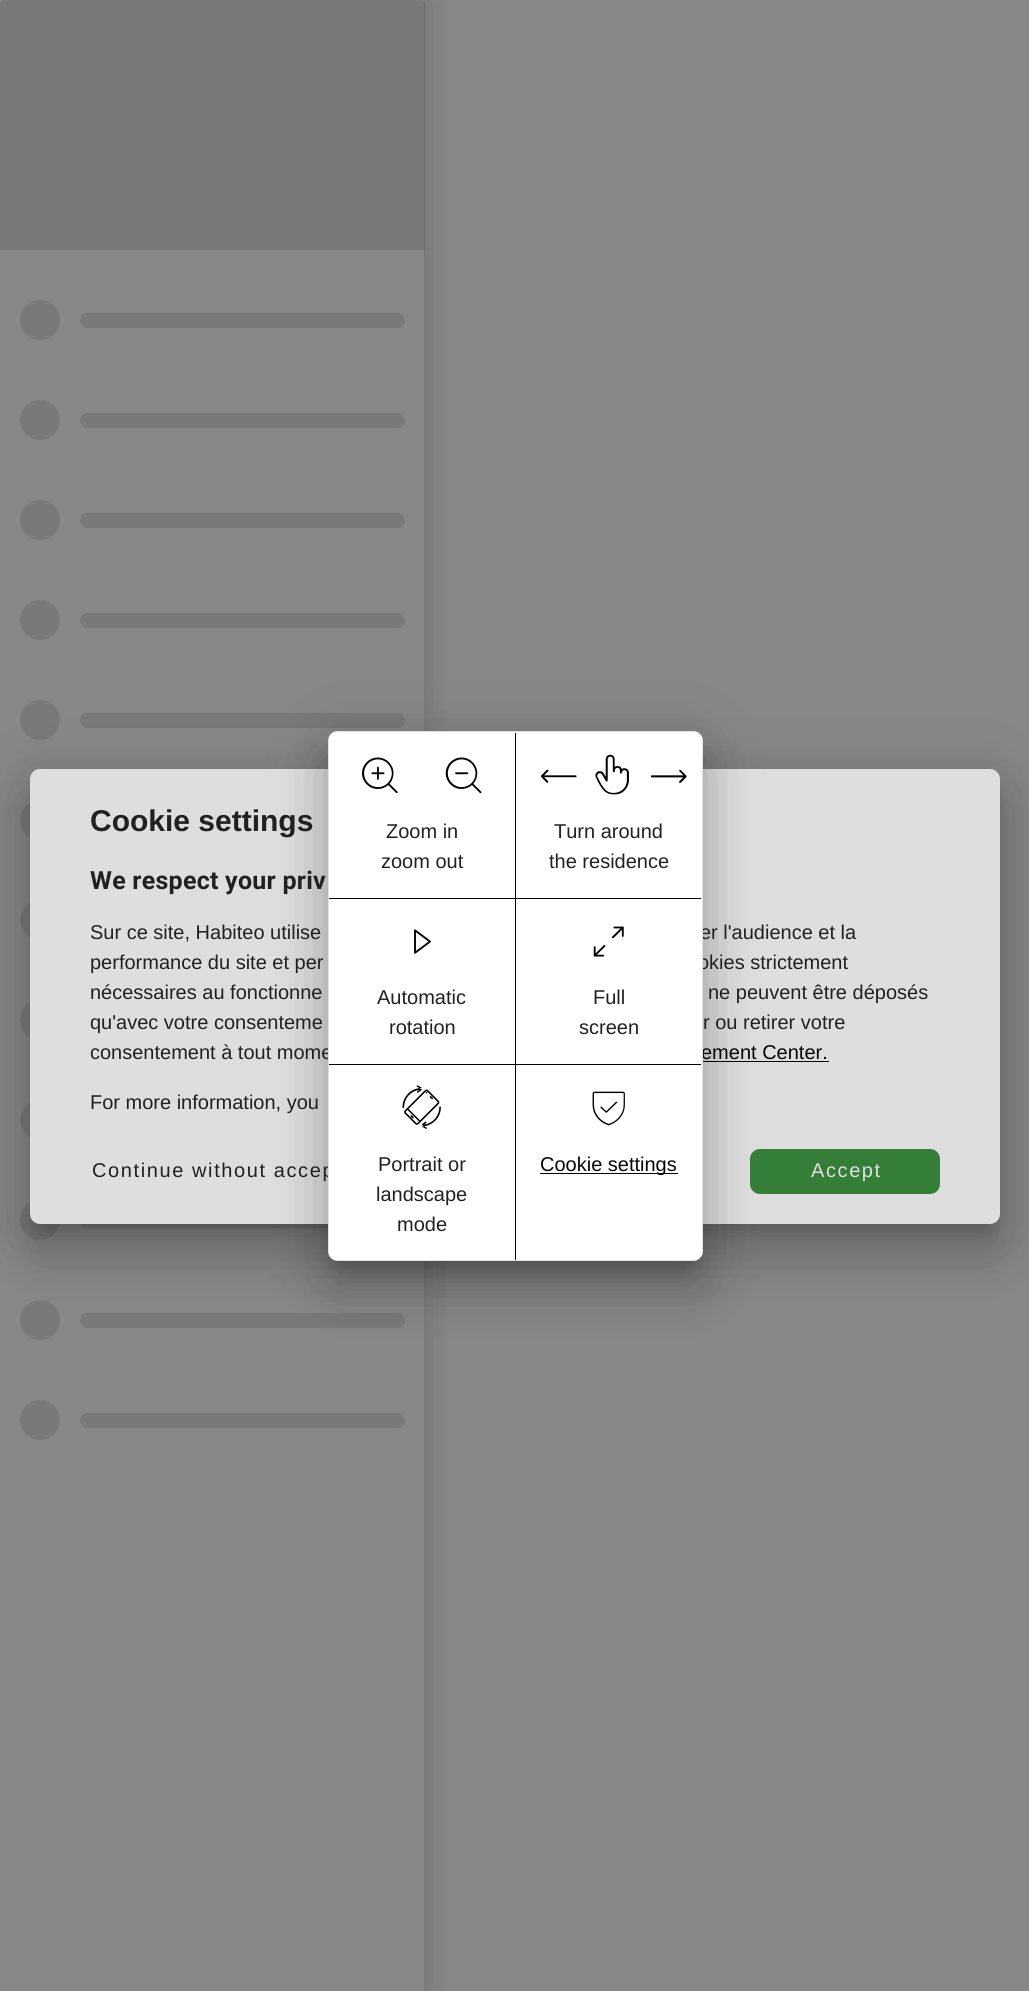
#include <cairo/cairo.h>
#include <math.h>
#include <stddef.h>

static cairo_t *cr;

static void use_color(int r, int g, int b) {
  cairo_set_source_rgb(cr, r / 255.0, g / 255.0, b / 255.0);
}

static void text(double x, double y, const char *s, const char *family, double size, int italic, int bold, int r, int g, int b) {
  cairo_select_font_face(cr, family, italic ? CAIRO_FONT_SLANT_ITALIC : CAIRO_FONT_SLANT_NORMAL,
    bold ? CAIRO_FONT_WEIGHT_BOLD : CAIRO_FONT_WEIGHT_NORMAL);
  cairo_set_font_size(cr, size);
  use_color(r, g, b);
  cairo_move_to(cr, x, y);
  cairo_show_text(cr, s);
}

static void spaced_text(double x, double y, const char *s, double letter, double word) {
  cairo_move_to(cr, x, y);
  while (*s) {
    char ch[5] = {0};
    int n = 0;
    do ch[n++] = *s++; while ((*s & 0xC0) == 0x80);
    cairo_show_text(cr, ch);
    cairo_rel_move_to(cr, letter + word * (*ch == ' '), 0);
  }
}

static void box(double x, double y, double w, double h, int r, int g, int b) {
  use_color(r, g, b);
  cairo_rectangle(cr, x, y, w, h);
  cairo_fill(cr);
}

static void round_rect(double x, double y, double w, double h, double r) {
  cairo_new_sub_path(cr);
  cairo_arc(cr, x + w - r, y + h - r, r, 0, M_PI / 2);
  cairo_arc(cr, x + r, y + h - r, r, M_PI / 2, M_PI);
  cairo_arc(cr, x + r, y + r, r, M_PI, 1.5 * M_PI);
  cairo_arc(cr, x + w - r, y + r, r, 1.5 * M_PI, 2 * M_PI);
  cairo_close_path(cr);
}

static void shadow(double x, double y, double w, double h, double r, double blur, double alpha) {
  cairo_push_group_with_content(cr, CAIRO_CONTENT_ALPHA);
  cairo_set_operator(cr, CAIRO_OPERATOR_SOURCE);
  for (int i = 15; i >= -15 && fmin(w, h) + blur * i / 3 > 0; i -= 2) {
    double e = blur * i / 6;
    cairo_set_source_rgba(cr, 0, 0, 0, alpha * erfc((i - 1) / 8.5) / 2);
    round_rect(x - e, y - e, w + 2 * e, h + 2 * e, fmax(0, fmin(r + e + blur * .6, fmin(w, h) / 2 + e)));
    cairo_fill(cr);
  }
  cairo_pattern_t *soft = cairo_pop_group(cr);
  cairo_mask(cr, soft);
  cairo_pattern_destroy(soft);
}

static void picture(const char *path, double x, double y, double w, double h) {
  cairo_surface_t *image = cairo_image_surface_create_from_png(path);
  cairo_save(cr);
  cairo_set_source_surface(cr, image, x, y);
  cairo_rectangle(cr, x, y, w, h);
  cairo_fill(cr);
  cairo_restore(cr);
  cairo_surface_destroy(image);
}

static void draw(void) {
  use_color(135, 135, 135);
  cairo_paint(cr);
  cairo_save(cr);
  cairo_rectangle(cr, 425, 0, 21, 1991);
  cairo_clip(cr);
  use_color(18, 18, 18);
  shadow(0, 0, 425, 1991, 0, 17, 0.19);
  cairo_restore(cr);
  use_color(121, 121, 121);
  cairo_new_path(cr);
  cairo_move_to(cr, 5, 0);
  cairo_line_to(cr, 420, 0);
  cairo_curve_to(cr, 423, 0, 425, 2, 425, 5);
  cairo_line_to(cr, 425, 250);
  cairo_line_to(cr, 0, 250);
  cairo_line_to(cr, 0, 5);
  cairo_curve_to(cr, 0, 2, 2, 0, 5, 0);
  cairo_close_path(cr);
  cairo_fill(cr);
  cairo_arc(cr, 40, 320, 20, 0, 2 * M_PI);
  cairo_fill(cr);
  round_rect(80, 313, 325, 15, 7.5);
  cairo_fill(cr);
  cairo_arc(cr, 40, 420, 20, 0, 2 * M_PI);
  cairo_fill(cr);
  round_rect(80, 413, 325, 15, 7.5);
  cairo_fill(cr);
  cairo_arc(cr, 40, 520, 20, 0, 2 * M_PI);
  cairo_fill(cr);
  round_rect(80, 513, 325, 15, 7.5);
  cairo_fill(cr);
  cairo_arc(cr, 40, 620, 20, 0, 2 * M_PI);
  cairo_fill(cr);
  round_rect(80, 613, 325, 15, 7.5);
  cairo_fill(cr);
  cairo_arc(cr, 40, 720, 20, 0, 2 * M_PI);
  cairo_fill(cr);
  round_rect(80, 713, 325, 15, 7.5);
  cairo_fill(cr);
  cairo_arc(cr, 40, 820, 20, 0, 2 * M_PI);
  cairo_fill(cr);
  cairo_arc(cr, 40, 920, 20, 0, 2 * M_PI);
  cairo_fill(cr);
  cairo_arc(cr, 40, 1020, 20, 0, 2 * M_PI);
  cairo_fill(cr);
  cairo_arc(cr, 40, 1120, 20, 0, 2 * M_PI);
  cairo_fill(cr);
  cairo_arc(cr, 40, 1220, 20, 0, 2 * M_PI);
  cairo_fill(cr);
  round_rect(80, 1213, 325, 15, 7.5);
  cairo_fill(cr);
  cairo_arc(cr, 40, 1320, 20, 0, 2 * M_PI);
  cairo_fill(cr);
  round_rect(80, 1313, 325, 15, 7.5);
  cairo_fill(cr);
  cairo_arc(cr, 40, 1420, 20, 0, 2 * M_PI);
  cairo_fill(cr);
  round_rect(80, 1413, 325, 15, 7.5);
  cairo_fill(cr);
  cairo_set_source_rgba(cr, 0.071, 0.071, 0.071, 0.12);
  cairo_rectangle(cr, 424, 0, 1, 1991);
  cairo_fill(cr);
  use_color(5, 5, 5);
  shadow(20, 770, 990, 475, 20, 29, 0.12);
  shadow(26, 795, 978, 463, 14, 24, 0.14);
  shadow(39, 791, 952, 438, 1, 9.5, 0.2);
  cairo_save(cr);
  round_rect(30, 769, 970, 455, 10);
  cairo_clip(cr);
  shadow(30, 770, 970, 455, 5, 3, 0.12);
  shadow(30, 771, 970, 455, 5, 1, 0.14);
  shadow(33, 775, 965, 450, 2.5, 0.5, 0.2);
  cairo_restore(cr);
  use_color(222, 222, 222);
  round_rect(30, 769, 970, 455, 10);
  cairo_fill(cr);
  box(703, 1061, 126, 1, 5, 5, 5);
  use_color(53, 126, 56);
  round_rect(750, 1149, 190, 45, 10);
  cairo_fill(cr);
  use_color(0, 0, 0);
  shadow(318, 733, 395, 550, 20, 29, 0.12);
  shadow(324, 758, 382, 537, 14, 24, 0.14);
  shadow(336, 754, 358, 512, 1, 9.5, 0.2);
  text(90, 831, "Cookie settings", "Liberation Sans", 30, 0, 1, 33, 33, 33);
  cairo_select_font_face(cr, "Roboto", CAIRO_FONT_SLANT_NORMAL, CAIRO_FONT_WEIGHT_BOLD);
  cairo_set_font_size(cr, 25);
  spaced_text(90, 889, "We respect your priv", 0.25, 0);
  text(90, 939, "Sur ce site, Habiteo utilise", "Liberation Sans", 20, 0, 0, 33, 33, 33);
  text(700, 939, "er l'audience et la", "Liberation Sans", 20, 0, 0, 33, 33, 33);
  text(90, 969, "performance du site et per", "Liberation Sans", 20, 0, 0, 33, 33, 33);
  text(698, 969, "okies strictement", "Liberation Sans", 20, 0, 0, 33, 33, 33);
  text(90, 999, "nécessaires au fonctionne", "Liberation Sans", 20, 0, 0, 33, 33, 33);
  text(708, 999, "ne peuvent être déposés", "Liberation Sans", 20, 0, 0, 33, 33, 33);
  text(90, 1029, "qu'avec votre consenteme", "Liberation Sans", 20, 0, 0, 33, 33, 33);
  text(703, 1029, "r ou retirer votre", "Liberation Sans", 20, 0, 0, 33, 33, 33);
  text(90, 1059, "consentement à tout mome", "Liberation Sans", 20, 0, 0, 33, 33, 33);
  text(701, 1059, "ement Center.", "Liberation Sans", 20, 0, 0, 5, 5, 5);
  text(90, 1109, "For more information, you", "Liberation Sans", 20, 0, 0, 33, 33, 33);
  spaced_text(92, 1177, "Continue without accep", 1.6, 0);
  use_color(222, 222, 222);
  spaced_text(811, 1177, "Accept", 1.6, 0);
  use_color(255, 255, 255);
  round_rect(328, 731, 375, 530, 10);
  cairo_fill(cr);
  cairo_set_source_rgba(cr, 0, 0, 0, 0.12);
  cairo_set_fill_rule(cr, CAIRO_FILL_RULE_EVEN_ODD);
  cairo_new_path(cr);
  cairo_move_to(cr, 328, 741);
  cairo_line_to(cr, 328, 1251);
  cairo_line_to(cr, 329, 1255);
  cairo_line_to(cr, 329, 737);
  cairo_close_path(cr);
  cairo_move_to(cr, 338, 731);
  cairo_line_to(cr, 334, 732);
  cairo_line_to(cr, 697, 732);
  cairo_line_to(cr, 693, 731);
  cairo_close_path(cr);
  cairo_move_to(cr, 703, 741);
  cairo_line_to(cr, 702, 737);
  cairo_line_to(cr, 702, 1255);
  cairo_line_to(cr, 703, 1251);
  cairo_close_path(cr);
  cairo_move_to(cr, 693, 1261);
  cairo_line_to(cr, 697, 1260);
  cairo_line_to(cr, 334, 1260);
  cairo_line_to(cr, 338, 1261);
  cairo_close_path(cr);
  cairo_fill(cr);
  picture("img_01.png", 362, 757, 36, 37);
  picture("img_02.png", 445, 757, 37, 37);
  text(386, 838, "Zoom in", "Liberation Sans", 20, 0, 0, 33, 33, 33);
  text(381, 868, "zoom out", "Liberation Sans", 20, 0, 0, 33, 33, 33);
  box(515, 733, 1, 165, 0, 0, 0);
  picture("img_03.png", 540, 769, 37, 14);
  picture("img_04.png", 595, 754, 34, 41);
  picture("img_05.png", 651, 769, 36, 14);
  text(554, 838, "Turn around", "Liberation Sans", 20, 0, 0, 33, 33, 33);
  text(549, 868, "the residence", "Liberation Sans", 20, 0, 0, 33, 33, 33);
  box(329, 898, 372, 1, 0, 0, 0);
  picture("img_06.png", 414, 929, 17, 25);
  text(377, 1004, "Automatic", "Liberation Sans", 20, 0, 0, 33, 33, 33);
  text(389, 1034, "rotation", "Liberation Sans", 20, 0, 0, 33, 33, 33);
  box(515, 898, 1, 166, 0, 0, 0);
  picture("img_07.png", 593, 926, 31, 31);
  text(593, 1004, "Full", "Liberation Sans", 20, 0, 0, 33, 33, 33);
  text(579, 1034, "screen", "Liberation Sans", 20, 0, 0, 33, 33, 33);
  box(329, 1064, 372, 1, 0, 0, 0);
  picture("img_08.png", 402, 1085, 39, 44);
  text(378, 1171, "Portrait or", "Liberation Sans", 20, 0, 0, 33, 33, 33);
  text(376, 1201, "landscape", "Liberation Sans", 20, 0, 0, 33, 33, 33);
  text(397, 1231, "mode", "Liberation Sans", 20, 0, 0, 33, 33, 33);
  box(515, 1064, 1, 196, 0, 0, 0);
  picture("img_09.png", 592, 1091, 33, 35);
  box(540, 1173, 138, 1, 0, 0, 0);
  text(540, 1171, "Cookie settings", "Liberation Sans", 20, 0, 0, 5, 5, 5);
}

int main(void) {
  cairo_surface_t *surface = cairo_image_surface_create(CAIRO_FORMAT_RGB24, 1029, 1991);
  cr = cairo_create(surface);
  cairo_font_options_t *options = cairo_font_options_create();
  cairo_font_options_set_hint_metrics(options, CAIRO_HINT_METRICS_OFF);
  cairo_font_options_set_hint_style(options, CAIRO_HINT_STYLE_NONE);
  cairo_set_font_options(cr, options);
  cairo_set_miter_limit(cr, 4);
  draw();
  cairo_surface_write_to_png(surface, "out.png");
  cairo_font_options_destroy(options);
  cairo_destroy(cr);
  cairo_surface_destroy(surface);
  return 0;
}
